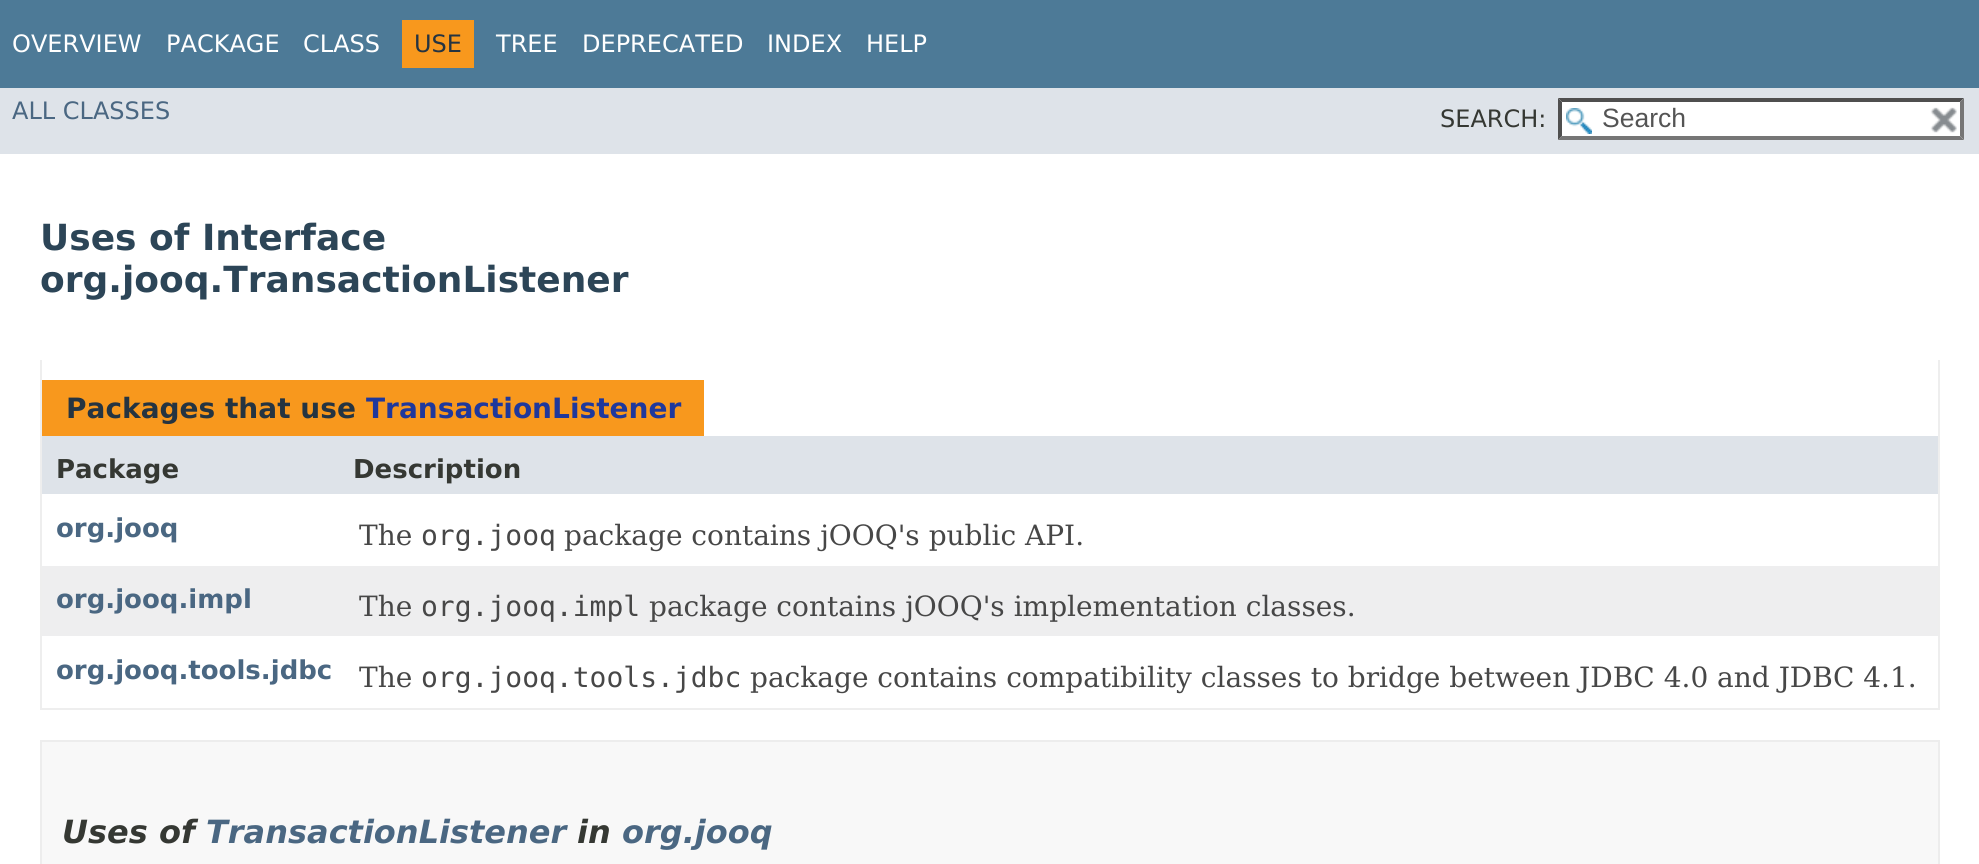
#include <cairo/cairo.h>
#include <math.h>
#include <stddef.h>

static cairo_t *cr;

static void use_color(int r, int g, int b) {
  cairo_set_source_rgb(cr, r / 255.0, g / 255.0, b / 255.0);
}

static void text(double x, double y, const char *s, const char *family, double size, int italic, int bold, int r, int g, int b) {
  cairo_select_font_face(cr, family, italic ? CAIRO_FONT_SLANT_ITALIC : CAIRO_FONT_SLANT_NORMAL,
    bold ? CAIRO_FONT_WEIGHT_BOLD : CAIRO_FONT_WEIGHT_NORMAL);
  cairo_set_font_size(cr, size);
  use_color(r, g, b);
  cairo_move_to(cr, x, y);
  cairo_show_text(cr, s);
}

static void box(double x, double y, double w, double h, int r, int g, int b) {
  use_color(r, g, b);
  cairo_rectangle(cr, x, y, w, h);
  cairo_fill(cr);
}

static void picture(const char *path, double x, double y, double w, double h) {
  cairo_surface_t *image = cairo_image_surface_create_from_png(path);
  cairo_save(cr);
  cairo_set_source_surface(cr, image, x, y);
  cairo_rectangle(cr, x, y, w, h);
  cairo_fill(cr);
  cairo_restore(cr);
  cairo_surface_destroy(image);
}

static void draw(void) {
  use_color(255, 255, 255);
  cairo_paint(cr);
  box(0, 0, 1979, 88, 77, 122, 151);
  box(402, 20, 72, 48, 248, 152, 29);
  box(0, 88, 1979, 66, 222, 227, 233);
  box(1558, 98, 406, 42, 255, 255, 255);
  picture("img_01.png", 1566, 108, 26, 26);
  use_color(79, 79, 79);
  cairo_new_path(cr);
  cairo_move_to(cr, 1558, 98);
  cairo_line_to(cr, 1964, 98);
  cairo_line_to(cr, 1960, 102);
  cairo_line_to(cr, 1562, 102);
  cairo_close_path(cr);
  cairo_fill(cr);
  use_color(118, 118, 118);
  cairo_new_path(cr);
  cairo_move_to(cr, 1964, 98);
  cairo_line_to(cr, 1964, 140);
  cairo_line_to(cr, 1960, 136);
  cairo_line_to(cr, 1960, 102);
  cairo_close_path(cr);
  cairo_fill(cr);
  cairo_new_path(cr);
  cairo_move_to(cr, 1964, 140);
  cairo_line_to(cr, 1558, 140);
  cairo_line_to(cr, 1562, 136);
  cairo_line_to(cr, 1960, 136);
  cairo_close_path(cr);
  cairo_fill(cr);
  use_color(79, 79, 79);
  cairo_new_path(cr);
  cairo_move_to(cr, 1558, 140);
  cairo_line_to(cr, 1558, 98);
  cairo_line_to(cr, 1562, 102);
  cairo_line_to(cr, 1562, 136);
  cairo_close_path(cr);
  cairo_fill(cr);
  picture("img_02.png", 1930, 107, 27, 26);
  box(1938, 360, 2, 350, 238, 238, 238);
  box(40, 708, 1900, 2, 238, 238, 238);
  box(40, 360, 2, 350, 238, 238, 238);
  box(42, 380, 662, 56, 248, 152, 29);
  box(42, 436, 1896, 58, 222, 227, 233);
  box(42, 566, 1896, 70, 238, 238, 239);
  use_color(248, 248, 248);
  cairo_rectangle(cr, 41, 741, 1898, 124);
  cairo_fill_preserve(cr);
  use_color(237, 237, 237);
  cairo_stroke(cr);
  text(12, 52, "OVERVIEW", "DejaVu Sans", 24, 0, 0, 255, 255, 255);
  text(166, 52, "PACKAGE", "DejaVu Sans", 24, 0, 0, 255, 255, 255);
  text(303, 52, "CLASS", "DejaVu Sans", 24, 0, 0, 255, 255, 255);
  text(414, 52, "USE", "DejaVu Sans", 24, 0, 0, 37, 52, 65);
  text(496, 52, "TREE", "DejaVu Sans", 24, 0, 0, 255, 255, 255);
  text(582, 52, "DEPRECATED", "DejaVu Sans", 24, 0, 0, 255, 255, 255);
  text(767, 52, "INDEX", "DejaVu Sans", 24, 0, 0, 255, 255, 255);
  text(866, 52, "HELP", "DejaVu Sans", 24, 0, 0, 255, 255, 255);
  text(12, 119, "ALL CLASSES", "DejaVu Sans", 24, 0, 0, 74, 103, 130);
  text(1440, 127, "SEARCH:", "DejaVu Sans", 24, 0, 0, 53, 56, 51);
  text(1602, 127, "Search", "Liberation Sans", 26.5, 0, 0, 84, 84, 84);
  text(40, 250, "Uses of Interface", "DejaVu Sans", 36, 0, 1, 44, 69, 87);
  text(40, 292, "org.jooq.TransactionListener", "DejaVu Sans", 36, 0, 1, 44, 69, 87);
  text(66, 418, "Packages that use", "DejaVu Sans", 28, 0, 1, 37, 52, 65);
  text(366, 418, "TransactionListener", "DejaVu Sans", 28, 0, 1, 31, 56, 156);
  text(56, 478, "Package", "DejaVu Sans", 26, 0, 1, 53, 56, 51);
  text(353, 478, "Description", "DejaVu Sans", 26, 0, 1, 53, 56, 51);
  text(56, 537, "org.jooq", "DejaVu Sans", 26, 0, 1, 74, 103, 130);
  text(359, 545, "The", "DejaVu Serif", 28, 0, 0, 71, 71, 71);
  text(421, 545, "org.jooq", "DejaVu Sans Mono", 28, 0, 0, 71, 71, 71);
  text(564, 545, "package contains jOOQ's public API.", "DejaVu Serif", 28, 0, 0, 71, 71, 71);
  text(56, 608, "org.jooq.impl", "DejaVu Sans", 26, 0, 1, 74, 103, 130);
  text(359, 616, "The", "DejaVu Serif", 28, 0, 0, 71, 71, 71);
  text(421, 616, "org.jooq.impl", "DejaVu Sans Mono", 28, 0, 0, 71, 71, 71);
  text(649, 616, "package contains jOOQ's implementation classes.", "DejaVu Serif", 28, 0, 0, 71, 71, 71);
  text(56, 679, "org.jooq.tools.jdbc", "DejaVu Sans", 26, 0, 1, 74, 103, 130);
  text(359, 687, "The", "DejaVu Serif", 28, 0, 0, 71, 71, 71);
  text(421, 687, "org.jooq.tools.jdbc", "DejaVu Sans Mono", 28, 0, 0, 71, 71, 71);
  text(750, 687, "package contains compatibility classes to bridge between JDBC 4.0 and JDBC 4.1.", "DejaVu Serif", 28, 0, 0, 71, 71, 71);
  text(62, 843, "Uses of", "DejaVu Sans", 32, 1, 1, 53, 56, 51);
  text(206, 843, "TransactionListener", "DejaVu Sans", 32, 1, 1, 74, 103, 130);
  text(577, 843, "in", "DejaVu Sans", 32, 1, 1, 53, 56, 51);
  text(622, 843, "org.jooq", "DejaVu Sans", 32, 1, 1, 74, 103, 130);
}

int main(void) {
  cairo_surface_t *surface = cairo_image_surface_create(CAIRO_FORMAT_RGB24, 1979, 864);
  cr = cairo_create(surface);
  cairo_font_options_t *options = cairo_font_options_create();
  cairo_font_options_set_hint_metrics(options, CAIRO_HINT_METRICS_OFF);
  cairo_font_options_set_hint_style(options, CAIRO_HINT_STYLE_NONE);
  cairo_set_font_options(cr, options);
  cairo_set_miter_limit(cr, 4);
  draw();
  cairo_surface_write_to_png(surface, "out.png");
  cairo_font_options_destroy(options);
  cairo_destroy(cr);
  cairo_surface_destroy(surface);
  return 0;
}
